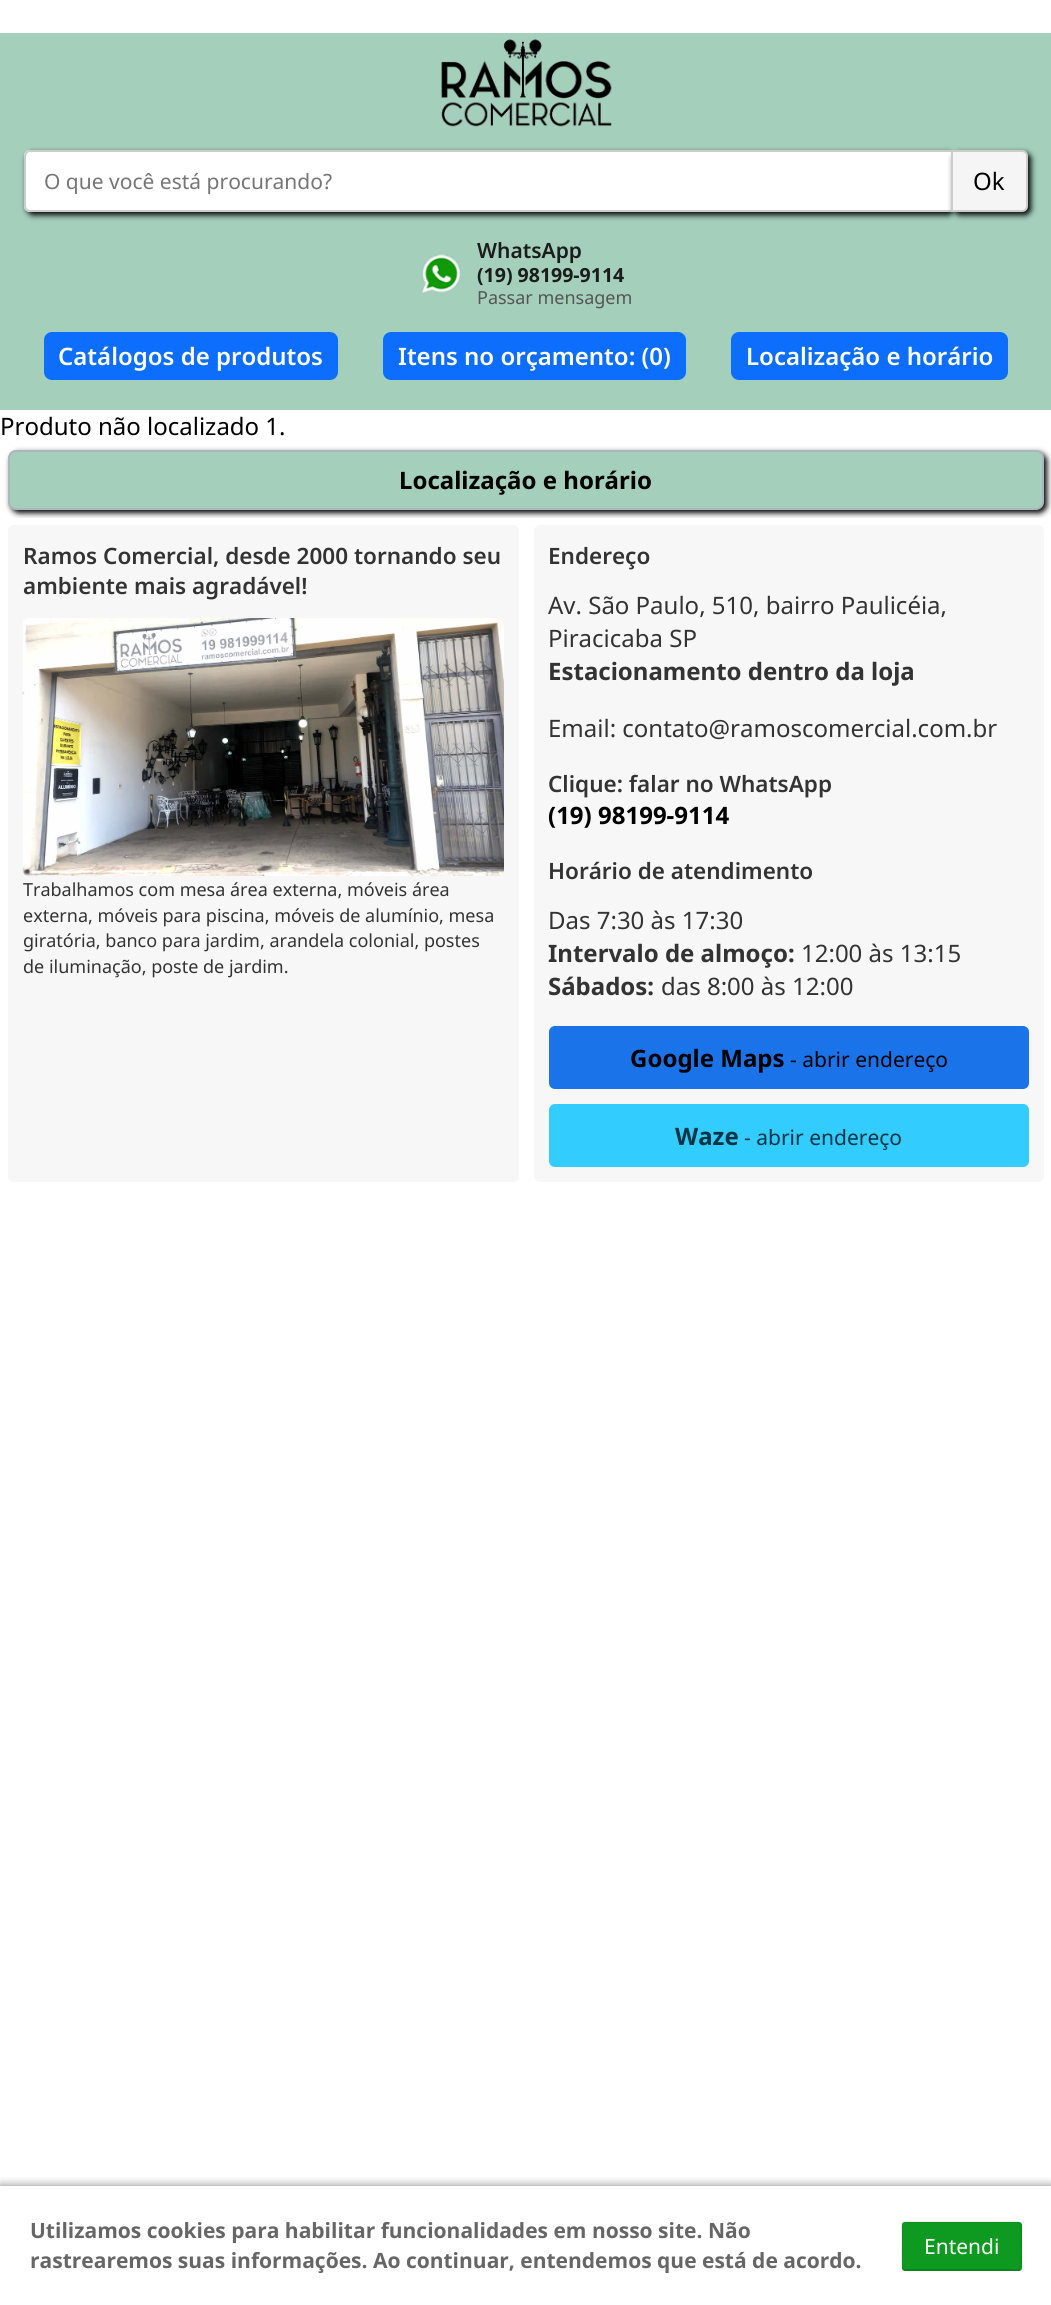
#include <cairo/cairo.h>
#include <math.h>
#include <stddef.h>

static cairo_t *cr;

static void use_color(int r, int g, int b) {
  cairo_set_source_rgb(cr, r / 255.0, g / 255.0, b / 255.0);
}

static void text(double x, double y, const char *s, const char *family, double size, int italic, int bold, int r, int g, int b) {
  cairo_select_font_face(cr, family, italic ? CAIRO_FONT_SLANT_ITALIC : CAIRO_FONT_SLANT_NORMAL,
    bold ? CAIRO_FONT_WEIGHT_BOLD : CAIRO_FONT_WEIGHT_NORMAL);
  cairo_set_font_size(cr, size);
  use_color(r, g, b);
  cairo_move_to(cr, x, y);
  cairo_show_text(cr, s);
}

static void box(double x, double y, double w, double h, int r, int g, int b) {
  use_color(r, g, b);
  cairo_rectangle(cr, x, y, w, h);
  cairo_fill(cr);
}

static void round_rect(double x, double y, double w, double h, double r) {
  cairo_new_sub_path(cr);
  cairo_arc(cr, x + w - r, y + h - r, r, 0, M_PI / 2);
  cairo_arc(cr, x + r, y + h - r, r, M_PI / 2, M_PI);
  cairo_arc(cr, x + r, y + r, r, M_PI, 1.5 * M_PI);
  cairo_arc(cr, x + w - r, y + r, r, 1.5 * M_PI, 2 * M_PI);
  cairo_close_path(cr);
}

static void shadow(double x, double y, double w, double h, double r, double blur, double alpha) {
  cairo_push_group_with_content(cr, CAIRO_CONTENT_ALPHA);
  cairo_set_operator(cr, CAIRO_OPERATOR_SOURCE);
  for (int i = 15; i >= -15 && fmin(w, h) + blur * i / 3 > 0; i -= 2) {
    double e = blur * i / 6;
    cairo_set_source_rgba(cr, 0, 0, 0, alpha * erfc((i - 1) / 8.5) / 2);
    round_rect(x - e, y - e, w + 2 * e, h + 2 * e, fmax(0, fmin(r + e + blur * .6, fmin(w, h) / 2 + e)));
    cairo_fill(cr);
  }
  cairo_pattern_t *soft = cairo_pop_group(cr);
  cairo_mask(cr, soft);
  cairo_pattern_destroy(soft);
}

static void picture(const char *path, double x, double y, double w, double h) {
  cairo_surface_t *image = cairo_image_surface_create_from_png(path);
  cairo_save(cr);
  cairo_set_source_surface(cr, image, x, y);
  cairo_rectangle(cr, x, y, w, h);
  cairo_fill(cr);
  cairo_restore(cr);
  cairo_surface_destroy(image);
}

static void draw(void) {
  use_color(255, 255, 255);
  cairo_paint(cr);
  box(0, 33, 1051, 377, 163, 207, 187);
  picture("img_01.png", 440, 39, 172, 88);
  use_color(0, 0, 0);
  shadow(27, 153, 927, 62, 6, 3, 1);
  use_color(255, 255, 255);
  cairo_new_path(cr);
  cairo_move_to(cr, 30, 150);
  cairo_line_to(cr, 951, 150);
  cairo_line_to(cr, 951, 212);
  cairo_line_to(cr, 30, 212);
  cairo_curve_to(cr, 26.5, 212, 24, 209.5, 24, 206);
  cairo_line_to(cr, 24, 156);
  cairo_curve_to(cr, 24, 152.5, 26.5, 150, 30, 150);
  cairo_close_path(cr);
  cairo_fill(cr);
  use_color(204, 204, 204);
  cairo_set_fill_rule(cr, CAIRO_FILL_RULE_EVEN_ODD);
  cairo_new_path(cr);
  cairo_move_to(cr, 30, 150);
  cairo_line_to(cr, 951, 150);
  cairo_line_to(cr, 951, 212);
  cairo_line_to(cr, 30, 212);
  cairo_curve_to(cr, 27, 212, 24, 209, 24, 206);
  cairo_line_to(cr, 24, 156);
  cairo_curve_to(cr, 24, 153, 27, 150, 30, 150);
  cairo_close_path(cr);
  cairo_move_to(cr, 30, 152);
  cairo_line_to(cr, 951, 152);
  cairo_line_to(cr, 951, 210);
  cairo_line_to(cr, 30, 210);
  cairo_curve_to(cr, 28, 210, 26, 208, 26, 206);
  cairo_line_to(cr, 26, 156);
  cairo_curve_to(cr, 26, 154, 28, 152, 30, 152);
  cairo_close_path(cr);
  cairo_fill(cr);
  use_color(0, 0, 0);
  shadow(954, 153, 77, 62, 6, 3, 1);
  use_color(245, 245, 245);
  cairo_new_path(cr);
  cairo_move_to(cr, 952, 151);
  cairo_line_to(cr, 1022, 151);
  cairo_curve_to(cr, 1025, 151, 1027, 153, 1027, 156);
  cairo_line_to(cr, 1027, 206);
  cairo_curve_to(cr, 1027, 209, 1025, 211, 1022, 211);
  cairo_line_to(cr, 952, 211);
  cairo_close_path(cr);
  cairo_fill_preserve(cr);
  use_color(204, 204, 204);
  cairo_stroke(cr);
  picture("img_02.png", 421, 254, 40, 40);
  use_color(13, 110, 253);
  round_rect(44, 332, 294, 48, 8);
  cairo_fill(cr);
  round_rect(383, 332, 303, 48, 8);
  cairo_fill(cr);
  round_rect(731, 332, 277, 48, 8);
  cairo_fill(cr);
  use_color(0, 0, 0);
  shadow(11, 453, 1036, 60, 8, 3, 1);
  use_color(163, 207, 187);
  round_rect(9, 451, 1034, 58, 7);
  cairo_fill_preserve(cr);
  use_color(173, 181, 189);
  cairo_stroke(cr);
  box(14, 518, 1030, 2, 255, 255, 255);
  use_color(247, 247, 247);
  round_rect(8, 525, 511, 657, 6);
  cairo_fill(cr);
  picture("img_03.png", 22, 618, 482, 258);
  round_rect(534, 525, 510, 657, 6);
  cairo_fill(cr);
  use_color(26, 115, 232);
  round_rect(549, 1026, 480, 63, 6);
  cairo_fill(cr);
  use_color(51, 204, 255);
  round_rect(549, 1104, 480, 63, 6);
  cairo_fill(cr);
  cairo_save(cr);
  cairo_set_fill_rule(cr, CAIRO_FILL_RULE_WINDING);
  cairo_rectangle(cr, 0, 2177, 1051, 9);
  cairo_clip(cr);
  use_color(0, 0, 0);
  shadow(0, 2186, 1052, 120, 0, 5, 0.5);
  cairo_restore(cr);
  use_color(14, 154, 32);
  round_rect(902, 2222, 120, 49, 3);
  cairo_fill(cr);
  cairo_new_path(cr);
  cairo_move_to(cr, 1020, 2269.5);
  cairo_line_to(cr, 1018.5, 2270);
  cairo_line_to(cr, 904.5, 2270);
  cairo_line_to(cr, 903, 2269.5);
  cairo_set_source_rgba(cr, 0, 0, 0, 0.2);
  cairo_set_line_width(cr, 1.5);
  cairo_stroke(cr);
  cairo_new_path(cr);
  cairo_move_to(cr, 903, 2269.5);
  cairo_curve_to(cr, 901, 2268, 902, 2249.5, 902, 2246);
  cairo_line_to(cr, 902, 2232);
  cairo_curve_to(cr, 902, 2231.5, 900.5, 2222.5, 904.5, 2222);
  cairo_line_to(cr, 1018.5, 2222);
  cairo_curve_to(cr, 1022.5, 2222.5, 1021, 2231.5, 1021, 2232);
  cairo_line_to(cr, 1021, 2246);
  cairo_curve_to(cr, 1021, 2249.5, 1022, 2268, 1020, 2269.5);
  cairo_set_source_rgba(cr, 0, 0, 0, 0.1);
  cairo_stroke(cr);
  text(44, 189, "O que você está procurando?", "Noto Sans", 21, 0, 0, 117, 117, 117);
  text(973, 190, "Ok", "Noto Sans", 24, 0, 0, 0, 0, 0);
  text(477, 258, "WhatsApp", "Noto Sans SemiBold", 21, 0, 0, 28, 28, 28);
  text(477, 282, "(19) 98199-9114", "Noto Sans", 19.5, 0, 1, 28, 28, 28);
  text(477, 304, "Passar mensagem", "Noto Sans", 18, 0, 0, 85, 85, 85);
  text(58, 365, "Catálogos de produtos", "Noto Sans SemiBold", 24, 0, 0, 255, 255, 255);
  text(398, 365, "Itens no orçamento: (0)", "Noto Sans SemiBold", 24, 0, 0, 255, 255, 255);
  text(746, 365, "Localização e horário", "Noto Sans SemiBold", 24, 0, 0, 255, 255, 255);
  text(0, 435, "Produto não localizado 1.", "Noto Sans", 24, 0, 0, 0, 0, 0);
  text(399, 489, "Localização e horário", "Noto Sans", 24, 0, 1, 0, 0, 0);
  text(23, 564, "Ramos Comercial, desde 2000 tornando seu", "Noto Sans SemiBold", 22.5, 0, 0, 51, 51, 51);
  text(23, 594, "ambiente mais agradável!", "Noto Sans SemiBold", 22.5, 0, 0, 51, 51, 51);
  text(23, 896, "Trabalhamos com mesa área externa, móveis área", "Noto Sans", 18, 0, 0, 51, 51, 51);
  text(23, 922, "externa, móveis para piscina, móveis de alumínio, mesa", "Noto Sans", 18, 0, 0, 51, 51, 51);
  text(23, 947, "giratória, banco para jardim, arandela colonial, postes", "Noto Sans", 18, 0, 0, 51, 51, 51);
  text(23, 973, "de iluminação, poste de jardim.", "Noto Sans", 18, 0, 0, 51, 51, 51);
  text(548, 564, "Endereço", "Noto Sans SemiBold", 22.5, 0, 0, 51, 51, 51);
  text(548, 614, "Av. São Paulo, 510, bairro Paulicéia,", "Noto Sans", 24, 0, 0, 51, 51, 51);
  text(548, 647, "Piracicaba SP", "Noto Sans", 24, 0, 0, 51, 51, 51);
  text(548, 680, "Estacionamento dentro da loja", "Noto Sans", 24, 0, 1, 51, 51, 51);
  text(548, 737, "Email: contato@ramoscomercial.com.br", "Noto Sans", 24, 0, 0, 51, 51, 51);
  text(548, 792, "Clique: falar no WhatsApp", "Noto Sans SemiBold", 22.5, 0, 0, 51, 51, 51);
  text(548, 824, "(19) 98199-9114", "Noto Sans", 24, 0, 1, 0, 0, 0);
  text(548, 879, "Horário de atendimento", "Noto Sans SemiBold", 22.5, 0, 0, 51, 51, 51);
  text(548, 929, "Das 7:30 às 17:30", "Noto Sans", 24, 0, 0, 51, 51, 51);
  text(548, 962, "Intervalo de almoço:", "Noto Sans", 24, 0, 1, 51, 51, 51);
  text(801, 962, "12:00 às 13:15", "Noto Sans", 24, 0, 0, 51, 51, 51);
  text(548, 995, "Sábados:", "Noto Sans", 24, 0, 1, 51, 51, 51);
  text(661, 995, "das 8:00 às 12:00", "Noto Sans", 24, 0, 0, 51, 51, 51);
  text(630, 1067, "Google Maps", "Noto Sans", 24, 0, 1, 0, 0, 0);
  text(790, 1067, "- abrir endereço", "Noto Sans", 21, 0, 0, 0, 0, 0);
  text(675, 1145, "Waze", "Noto Sans", 24, 0, 1, 0, 51, 68);
  text(744, 1145, "- abrir endereço", "Noto Sans", 21, 0, 0, 0, 51, 68);
  text(30, 2238, "Utilizamos cookies para habilitar funcionalidades em nosso site. Não", "Open Sans", 21, 0, 1, 102, 102, 102);
  text(30, 2268, "rastrearemos suas informações. Ao continuar, entendemos que está de acordo.", "Open Sans", 21, 0, 1, 102, 102, 102);
  text(924, 2254, "Entendi", "Noto Sans", 21, 0, 0, 255, 255, 255);
}

int main(void) {
  cairo_surface_t *surface = cairo_image_surface_create(CAIRO_FORMAT_RGB24, 1051, 2305);
  cr = cairo_create(surface);
  cairo_font_options_t *options = cairo_font_options_create();
  cairo_font_options_set_hint_metrics(options, CAIRO_HINT_METRICS_OFF);
  cairo_font_options_set_hint_style(options, CAIRO_HINT_STYLE_NONE);
  cairo_set_font_options(cr, options);
  cairo_set_miter_limit(cr, 4);
  draw();
  cairo_surface_write_to_png(surface, "out.png");
  cairo_font_options_destroy(options);
  cairo_destroy(cr);
  cairo_surface_destroy(surface);
  return 0;
}
